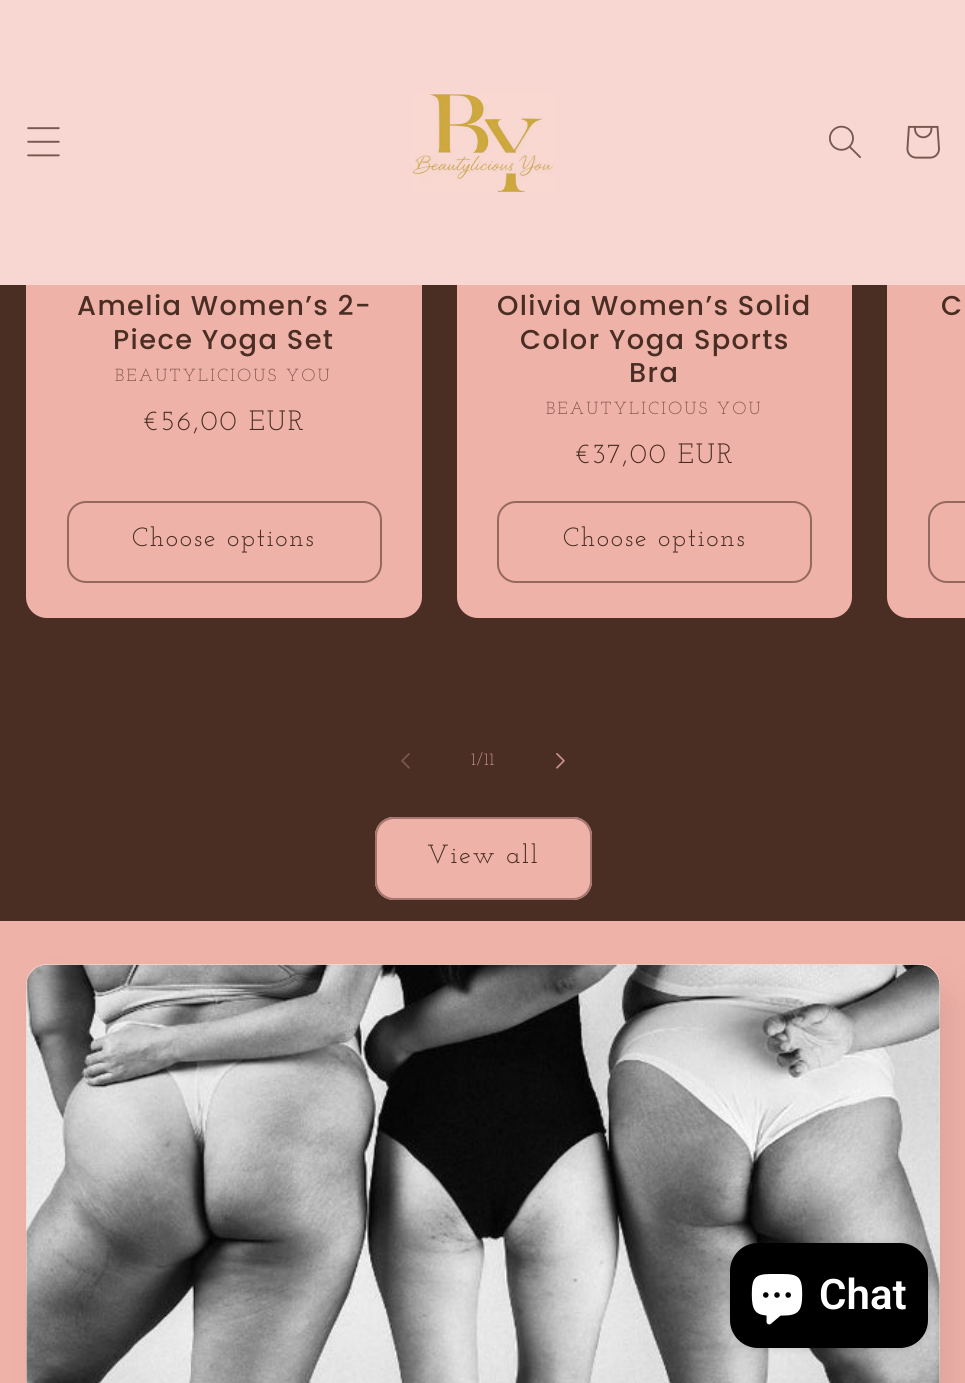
#include <cairo/cairo.h>
#include <math.h>
#include <stddef.h>

static cairo_t *cr;

static void use_color(int r, int g, int b) {
  cairo_set_source_rgb(cr, r / 255.0, g / 255.0, b / 255.0);
}

static void text(double x, double y, const char *s, const char *family, double size, int italic, int bold, int r, int g, int b) {
  cairo_select_font_face(cr, family, italic ? CAIRO_FONT_SLANT_ITALIC : CAIRO_FONT_SLANT_NORMAL,
    bold ? CAIRO_FONT_WEIGHT_BOLD : CAIRO_FONT_WEIGHT_NORMAL);
  cairo_set_font_size(cr, size);
  use_color(r, g, b);
  cairo_move_to(cr, x, y);
  cairo_show_text(cr, s);
}

static void spaced_text(double x, double y, const char *s, double letter, double word) {
  cairo_move_to(cr, x, y);
  while (*s) {
    char ch[5] = {0};
    int n = 0;
    do ch[n++] = *s++; while ((*s & 0xC0) == 0x80);
    cairo_show_text(cr, ch);
    cairo_rel_move_to(cr, letter + word * (*ch == ' '), 0);
  }
}

static void box(double x, double y, double w, double h, int r, int g, int b) {
  use_color(r, g, b);
  cairo_rectangle(cr, x, y, w, h);
  cairo_fill(cr);
}

static void round_rect(double x, double y, double w, double h, double r) {
  cairo_new_sub_path(cr);
  cairo_arc(cr, x + w - r, y + h - r, r, 0, M_PI / 2);
  cairo_arc(cr, x + r, y + h - r, r, M_PI / 2, M_PI);
  cairo_arc(cr, x + r, y + r, r, M_PI, 1.5 * M_PI);
  cairo_arc(cr, x + w - r, y + r, r, 1.5 * M_PI, 2 * M_PI);
  cairo_close_path(cr);
}

static void shadow(double x, double y, double w, double h, double r, double blur, double alpha) {
  cairo_push_group_with_content(cr, CAIRO_CONTENT_ALPHA);
  cairo_set_operator(cr, CAIRO_OPERATOR_SOURCE);
  for (int i = 15; i >= -15 && fmin(w, h) + blur * i / 3 > 0; i -= 2) {
    double e = blur * i / 6;
    cairo_set_source_rgba(cr, 0, 0, 0, alpha * erfc((i - 1) / 8.5) / 2);
    round_rect(x - e, y - e, w + 2 * e, h + 2 * e, fmax(0, fmin(r + e + blur * .6, fmin(w, h) / 2 + e)));
    cairo_fill(cr);
  }
  cairo_pattern_t *soft = cairo_pop_group(cr);
  cairo_mask(cr, soft);
  cairo_pattern_destroy(soft);
}

static void picture(const char *path, double x, double y, double w, double h) {
  cairo_surface_t *image = cairo_image_surface_create_from_png(path);
  cairo_save(cr);
  cairo_set_source_surface(cr, image, x, y);
  cairo_rectangle(cr, x, y, w, h);
  cairo_fill(cr);
  cairo_restore(cr);
  cairo_surface_destroy(image);
}

static void draw(void) {
  use_color(239, 178, 169);
  cairo_paint(cr);
  box(0, 285, 965, 636, 74, 46, 36);
  use_color(239, 178, 169);
  round_rect(26, -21, 396, 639, 21);
  cairo_fill(cr);
  round_rect(457, -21, 395, 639, 21);
  cairo_fill(cr);
  cairo_new_path(cr);
  cairo_move_to(cr, 908, -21);
  cairo_line_to(cr, 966, -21);
  cairo_line_to(cr, 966, 618);
  cairo_line_to(cr, 908, 618);
  cairo_curve_to(cr, 896.5, 618, 887, 608.5, 887, 597);
  cairo_line_to(cr, 887, 0);
  cairo_curve_to(cr, 887, -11.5, 896.5, -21, 908, -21);
  cairo_close_path(cr);
  cairo_fill(cr);
  box(0, 0, 965, 285, 248, 215, 210);
  picture("img_01.png", 27, 127, 33, 30);
  picture("img_02.png", 411, 93, 143, 100);
  picture("img_03.png", 829, 125, 32, 33);
  picture("img_04.png", 906, 125, 34, 34);
  round_rect(68, 502, 313, 80, 18);
  use_color(148, 105, 96);
  cairo_stroke(cr);
  round_rect(498, 502, 313, 80, 18);
  cairo_stroke(cr);
  round_rect(929, 502, 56, 80, 18);
  cairo_stroke(cr);
  picture("img_05.png", 401, 753, 9, 16);
  picture("img_06.png", 556, 753, 9, 16);
  use_color(239, 178, 169);
  round_rect(375, 817, 217, 83, 19);
  cairo_fill(cr);
  round_rect(376, 818, 215, 81, 18);
  cairo_stroke(cr);
  round_rect(376, 818, 215, 81, 18);
  cairo_set_source_rgba(cr, 0.29, 0.18, 0.141, 0.45);
  cairo_stroke(cr);
  use_color(74, 46, 36);
  shadow(44, 985, 913, 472, 21, 17.5, 0.1);
  use_color(248, 215, 210);
  round_rect(26, 964, 914, 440, 21);
  cairo_fill(cr);
  picture("img_07.png", 26, 964, 914, 419);
  use_color(0, 0, 0);
  shadow(730, 1243, 198, 105, 28, 4.5, 0.15);
  use_color(0, 0, 0);
  round_rect(730, 1243, 198, 105, 28);
  cairo_fill(cr);
  picture("img_08.png", 751, 1274, 52, 51);
  cairo_select_font_face(cr, "Poppins Medium", CAIRO_FONT_SLANT_NORMAL, CAIRO_FONT_WEIGHT_NORMAL);
  cairo_set_font_size(cr, 27.25);
  use_color(74, 46, 36);
  spaced_text(77, 315, "Amelia Women’s 2-", 1.4, 0);
  spaced_text(113, 349, "Piece Yoga Set", 1.4, 0);
  cairo_select_font_face(cr, "Josefin Slab", CAIRO_FONT_SLANT_NORMAL, CAIRO_FONT_WEIGHT_NORMAL);
  cairo_set_font_size(cr, 17.5);
  use_color(124, 86, 76);
  spaced_text(115, 381, "BEAUTYLICIOUS YOU", 2.25, 0);
  cairo_set_font_size(cr, 28);
  use_color(74, 46, 36);
  spaced_text(143, 430, "€56,00 EUR", 1.75, 0);
  cairo_set_font_size(cr, 26.25);
  spaced_text(132, 546, "Choose options", 1.75, 0);
  cairo_select_font_face(cr, "Poppins Medium", CAIRO_FONT_SLANT_NORMAL, CAIRO_FONT_WEIGHT_NORMAL);
  cairo_set_font_size(cr, 27.25);
  spaced_text(497, 315, "Olivia Women’s Solid", 1.4, 0);
  spaced_text(520, 349, "Color Yoga Sports", 1.4, 0);
  spaced_text(629, 382, "Bra", 1.4, 0);
  cairo_select_font_face(cr, "Josefin Slab", CAIRO_FONT_SLANT_NORMAL, CAIRO_FONT_WEIGHT_NORMAL);
  cairo_set_font_size(cr, 17.5);
  use_color(124, 86, 76);
  spaced_text(546, 414, "BEAUTYLICIOUS YOU", 2.25, 0);
  cairo_set_font_size(cr, 28);
  use_color(74, 46, 36);
  spaced_text(575, 463, "€37,00 EUR", 1.75, 0);
  cairo_set_font_size(cr, 26.25);
  spaced_text(563, 546, "Choose options", 1.75, 0);
  cairo_select_font_face(cr, "Poppins Medium", CAIRO_FONT_SLANT_NORMAL, CAIRO_FONT_WEIGHT_NORMAL);
  cairo_set_font_size(cr, 27.25);
  spaced_text(941, 315, "C", 1.4, 0);
  cairo_select_font_face(cr, "Josefin Slab", CAIRO_FONT_SLANT_NORMAL, CAIRO_FONT_WEIGHT_NORMAL);
  cairo_set_font_size(cr, 17.5);
  use_color(198, 145, 136);
  spaced_text(471, 765, "1/11", 1, 0);
  cairo_set_font_size(cr, 26.25);
  use_color(74, 46, 36);
  spaced_text(427, 863, "View all", 1.75, 0);
  text(819, 1309, "Chat", "Roboto SemiBold", 42, 0, 0, 255, 255, 255);
}

int main(void) {
  cairo_surface_t *surface = cairo_image_surface_create(CAIRO_FORMAT_RGB24, 965, 1383);
  cr = cairo_create(surface);
  cairo_font_options_t *options = cairo_font_options_create();
  cairo_font_options_set_hint_metrics(options, CAIRO_HINT_METRICS_OFF);
  cairo_font_options_set_hint_style(options, CAIRO_HINT_STYLE_NONE);
  cairo_set_font_options(cr, options);
  cairo_set_miter_limit(cr, 4);
  draw();
  cairo_surface_write_to_png(surface, "out.png");
  cairo_font_options_destroy(options);
  cairo_destroy(cr);
  cairo_surface_destroy(surface);
  return 0;
}
